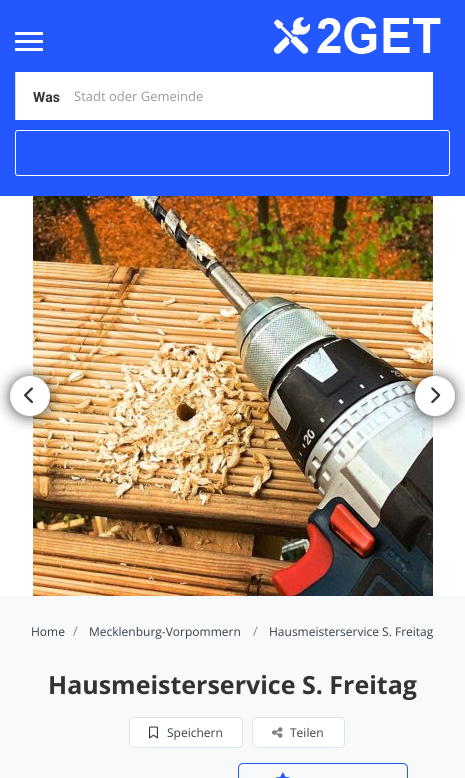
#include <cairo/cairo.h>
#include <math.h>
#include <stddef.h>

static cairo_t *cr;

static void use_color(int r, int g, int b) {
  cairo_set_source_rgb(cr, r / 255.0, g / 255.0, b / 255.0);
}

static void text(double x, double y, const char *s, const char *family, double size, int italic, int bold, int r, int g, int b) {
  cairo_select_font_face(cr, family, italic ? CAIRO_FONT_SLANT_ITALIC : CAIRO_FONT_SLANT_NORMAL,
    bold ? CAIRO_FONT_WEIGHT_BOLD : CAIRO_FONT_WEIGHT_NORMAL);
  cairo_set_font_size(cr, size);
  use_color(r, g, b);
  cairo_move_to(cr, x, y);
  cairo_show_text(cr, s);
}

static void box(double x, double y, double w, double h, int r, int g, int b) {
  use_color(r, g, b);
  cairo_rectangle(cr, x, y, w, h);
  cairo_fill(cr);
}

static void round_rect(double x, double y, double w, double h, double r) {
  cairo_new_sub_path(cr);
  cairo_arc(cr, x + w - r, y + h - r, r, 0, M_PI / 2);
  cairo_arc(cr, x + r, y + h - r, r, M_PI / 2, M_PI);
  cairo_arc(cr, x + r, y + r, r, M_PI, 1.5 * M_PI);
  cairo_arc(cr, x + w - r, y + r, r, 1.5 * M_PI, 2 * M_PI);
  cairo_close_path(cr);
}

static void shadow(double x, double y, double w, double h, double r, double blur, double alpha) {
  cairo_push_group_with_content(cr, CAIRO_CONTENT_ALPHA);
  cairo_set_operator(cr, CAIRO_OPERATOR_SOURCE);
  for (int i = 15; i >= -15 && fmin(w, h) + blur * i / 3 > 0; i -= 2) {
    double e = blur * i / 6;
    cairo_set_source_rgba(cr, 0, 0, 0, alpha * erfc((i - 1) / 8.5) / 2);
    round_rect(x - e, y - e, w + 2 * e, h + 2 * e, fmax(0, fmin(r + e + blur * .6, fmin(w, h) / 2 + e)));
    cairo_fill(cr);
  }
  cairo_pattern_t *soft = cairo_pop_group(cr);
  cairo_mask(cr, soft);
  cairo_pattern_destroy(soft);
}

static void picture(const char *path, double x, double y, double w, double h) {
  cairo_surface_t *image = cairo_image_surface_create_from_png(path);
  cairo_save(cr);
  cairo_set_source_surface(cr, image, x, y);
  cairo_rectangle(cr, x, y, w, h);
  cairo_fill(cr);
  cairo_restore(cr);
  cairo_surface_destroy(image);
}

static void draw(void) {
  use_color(247, 249, 250);
  cairo_paint(cr);
  box(0, 0, 465, 196, 36, 88, 255);
  picture("img_01.png", 274, 17, 167, 37);
  box(15, 32, 28, 3, 255, 255, 255);
  box(15, 40, 28, 3, 255, 255, 255);
  box(15, 48, 28, 3, 255, 255, 255);
  box(16, 72, 417, 48, 255, 255, 255);
  box(15, 72, 1, 48, 222, 222, 222);
  round_rect(15.5, 130.5, 434, 45, 2.5);
  use_color(255, 255, 255);
  cairo_set_line_width(cr, 1);
  cairo_stroke(cr);
  box(0, 196, 465, 400, 255, 255, 255);
  picture("img_02.png", 33, 196, 400, 400);
  use_color(0, 0, 0);
  shadow(10, 377, 40, 40, 20, 7, 0.66);
  use_color(255, 255, 255);
  cairo_arc(cr, 30, 396, 20, 0, 2 * M_PI);
  cairo_fill(cr);
  picture("img_03.png", 24, 387, 9, 17);
  use_color(0, 0, 0);
  shadow(415, 377, 40, 40, 20, 7, 0.66);
  use_color(255, 255, 255);
  cairo_arc(cr, 435, 396, 20, 0, 2 * M_PI);
  cairo_fill(cr);
  picture("img_04.png", 431, 387, 10, 17);
  round_rect(129.5, 717.5, 113, 30, 4.5);
  cairo_fill_preserve(cr);
  use_color(219, 231, 239);
  cairo_stroke(cr);
  picture("img_05.png", 149, 726, 9, 13);
  use_color(255, 255, 255);
  round_rect(252.5, 717.5, 92, 30, 4.5);
  cairo_fill_preserve(cr);
  use_color(219, 231, 239);
  cairo_stroke(cr);
  picture("img_06.png", 272, 727, 11, 11);
  round_rect(238.5, 763.5, 169, 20, 4.5);
  use_color(36, 88, 255);
  cairo_stroke(cr);
  picture("img_07.png", 275, 772, 15, 6);
  text(33, 102, "Was", "Roboto", 14, 0, 1, 51, 51, 51);
  text(74, 101, "Stadt oder Gemeinde", "Open Sans", 13, 0, 0, 153, 153, 153);
  text(31, 636, "Home", "Open Sans", 12, 0, 0, 54, 63, 72);
  text(73, 635, "/", "Roboto", 12, 0, 0, 127, 127, 127);
  text(89, 636, "Mecklenburg-Vorpommern", "Open Sans", 12, 0, 0, 54, 63, 72);
  text(253, 635, "/", "Roboto", 12, 0, 0, 127, 127, 127);
  text(269, 636, "Hausmeisterservice S. Freitag", "Open Sans", 12, 0, 0, 54, 63, 72);
  text(48, 694, "Hausmeisterservice S. Freitag", "Open Sans", 25, 0, 1, 51, 51, 51);
  text(167, 737, "Speichern", "Open Sans", 12, 0, 0, 54, 63, 72);
  text(290, 737, "Teilen", "Open Sans", 12, 0, 0, 54, 63, 72);
}

int main(void) {
  cairo_surface_t *surface = cairo_image_surface_create(CAIRO_FORMAT_RGB24, 465, 778);
  cr = cairo_create(surface);
  cairo_font_options_t *options = cairo_font_options_create();
  cairo_font_options_set_hint_metrics(options, CAIRO_HINT_METRICS_OFF);
  cairo_font_options_set_hint_style(options, CAIRO_HINT_STYLE_NONE);
  cairo_set_font_options(cr, options);
  cairo_set_miter_limit(cr, 4);
  draw();
  cairo_surface_write_to_png(surface, "out.png");
  cairo_font_options_destroy(options);
  cairo_destroy(cr);
  cairo_surface_destroy(surface);
  return 0;
}
